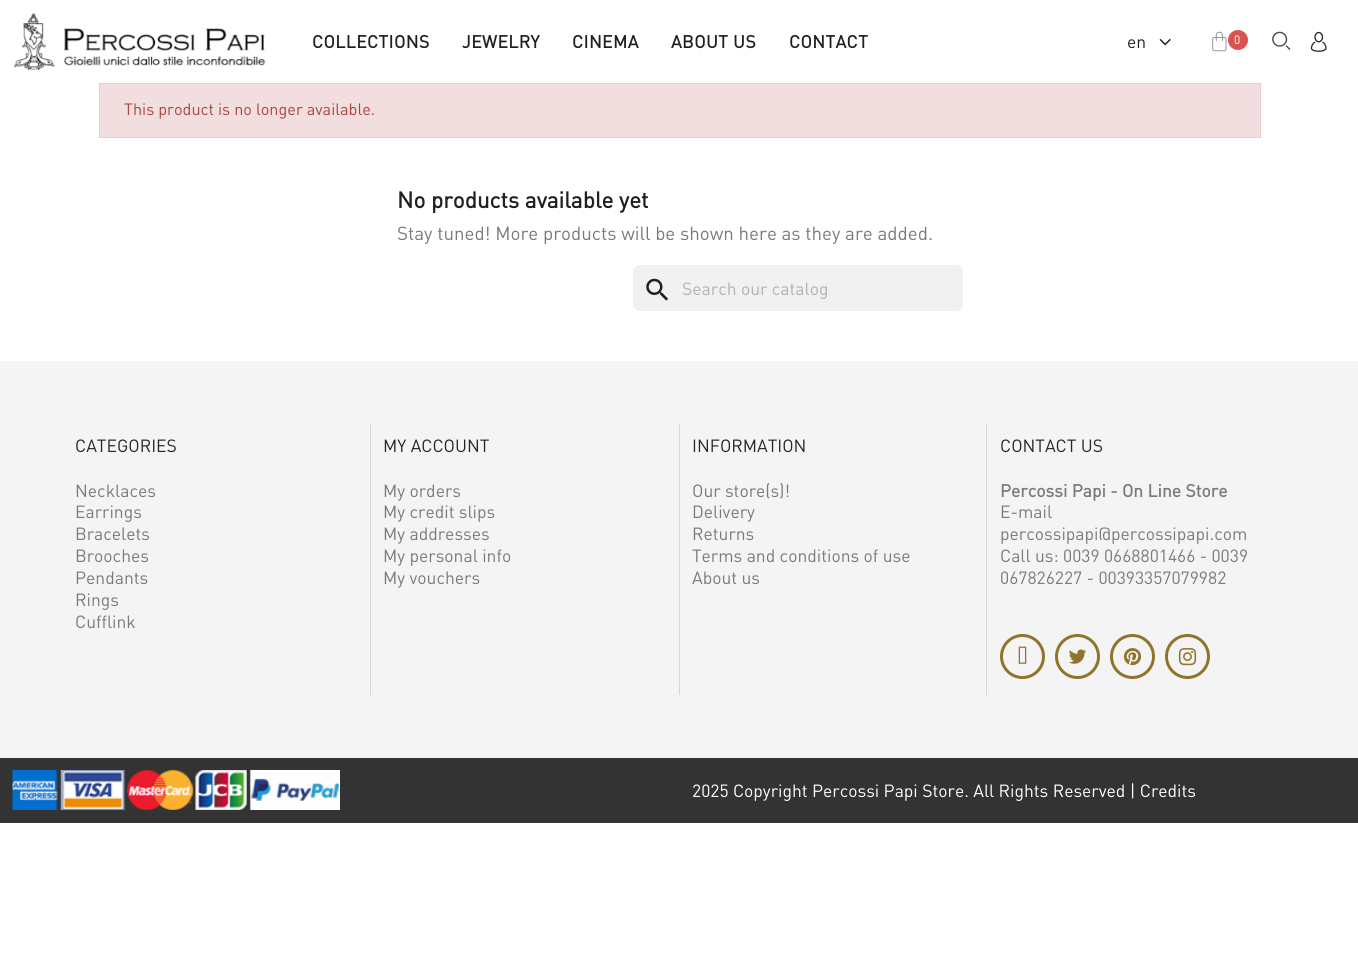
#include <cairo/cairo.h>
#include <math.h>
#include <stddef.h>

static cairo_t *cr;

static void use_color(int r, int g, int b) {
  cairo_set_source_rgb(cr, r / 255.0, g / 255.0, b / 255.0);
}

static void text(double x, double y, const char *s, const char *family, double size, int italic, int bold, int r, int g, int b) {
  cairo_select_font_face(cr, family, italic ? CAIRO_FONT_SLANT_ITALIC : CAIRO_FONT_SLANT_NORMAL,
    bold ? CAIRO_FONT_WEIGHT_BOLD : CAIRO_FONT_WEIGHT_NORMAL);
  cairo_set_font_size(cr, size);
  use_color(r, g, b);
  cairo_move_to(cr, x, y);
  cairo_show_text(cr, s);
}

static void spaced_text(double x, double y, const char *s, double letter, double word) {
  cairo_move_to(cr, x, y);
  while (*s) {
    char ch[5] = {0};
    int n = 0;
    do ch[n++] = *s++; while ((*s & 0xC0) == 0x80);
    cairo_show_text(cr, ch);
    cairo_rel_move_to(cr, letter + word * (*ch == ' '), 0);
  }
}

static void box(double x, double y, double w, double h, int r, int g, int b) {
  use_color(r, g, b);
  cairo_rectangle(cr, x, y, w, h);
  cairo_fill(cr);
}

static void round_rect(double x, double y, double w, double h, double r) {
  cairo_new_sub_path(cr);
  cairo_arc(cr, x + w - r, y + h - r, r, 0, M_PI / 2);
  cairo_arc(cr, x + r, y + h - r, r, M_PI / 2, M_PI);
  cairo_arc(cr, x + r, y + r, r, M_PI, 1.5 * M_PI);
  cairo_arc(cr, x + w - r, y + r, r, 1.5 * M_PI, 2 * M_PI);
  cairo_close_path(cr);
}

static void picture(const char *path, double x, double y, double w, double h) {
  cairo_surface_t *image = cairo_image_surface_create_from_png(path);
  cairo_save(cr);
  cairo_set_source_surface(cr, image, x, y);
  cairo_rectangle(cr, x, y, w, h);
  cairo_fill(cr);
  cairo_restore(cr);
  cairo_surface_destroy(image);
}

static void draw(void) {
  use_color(255, 255, 255);
  cairo_paint(cr);
  picture("img_01.png", 14, 13, 252, 58);
  picture("img_02.png", 1159, 38, 12, 8);
  picture("img_03.png", 1212, 31, 15, 21);
  use_color(217, 83, 79);
  cairo_arc(cr, 1238, 40, 10, 0, 2 * M_PI);
  cairo_fill(cr);
  picture("img_04.png", 1272, 31, 19, 19);
  picture("img_05.png", 1310, 31, 17, 21);
  use_color(242, 222, 222);
  cairo_rectangle(cr, 99.5, 83.5, 1161, 54);
  cairo_fill_preserve(cr);
  use_color(235, 204, 204);
  cairo_set_line_width(cr, 1);
  cairo_stroke(cr);
  use_color(241, 241, 241);
  round_rect(633, 265, 330, 46, 6);
  cairo_fill(cr);
  picture("img_06.png", 646, 278, 22, 23);
  box(0, 361, 1358, 397, 244, 244, 244);
  box(370, 424, 1, 271, 215, 215, 215);
  box(679, 424, 1, 271, 215, 215, 215);
  box(986, 424, 1, 271, 215, 215, 215);
  cairo_arc(cr, 1022.5, 656.5, 21, 0, 2 * M_PI);
  use_color(144, 116, 43);
  cairo_set_line_width(cr, 3);
  cairo_stroke(cr);
  picture("img_07.png", 1018, 646, 9, 18);
  cairo_arc(cr, 1077.5, 656.5, 21, 0, 2 * M_PI);
  cairo_stroke(cr);
  picture("img_08.png", 1068, 649, 19, 15);
  cairo_arc(cr, 1132.5, 656.5, 21, 0, 2 * M_PI);
  cairo_stroke(cr);
  picture("img_09.png", 1123, 648, 19, 18);
  cairo_arc(cr, 1187.5, 656.5, 21, 0, 2 * M_PI);
  cairo_stroke(cr);
  picture("img_10.png", 1178, 648, 19, 18);
  box(0, 758, 1358, 65, 51, 51, 51);
  picture("img_11.png", 12, 770, 328, 40);
  cairo_select_font_face(cr, "DIN", CAIRO_FONT_SLANT_NORMAL, CAIRO_FONT_WEIGHT_BOLD);
  cairo_set_font_size(cr, 17.5);
  use_color(32, 32, 32);
  spaced_text(312, 48, "COLLECTIONS", 0.4, 0);
  spaced_text(462, 48, "JEWELRY", 0.4, 0);
  spaced_text(572, 48, "CINEMA", 0.4, 0);
  spaced_text(671, 48, "ABOUT US", 0.4, 0);
  spaced_text(789, 48, "CONTACT", 0.4, 0);
  text(1127, 48, "en", "DIN", 17.5, 0, 0, 32, 32, 32);
  text(1234, 44, "0", "DIN", 12, 0, 0, 255, 255, 255);
  text(124, 115, "This product is no longer available.", "DIN", 16.25, 0, 0, 169, 68, 66);
  text(397, 208, "No products available yet", "DIN", 22.5, 0, 1, 32, 32, 32);
  text(397, 240, "Stay tuned! More products will be shown here as they are added.", "DIN", 18.75, 0, 0, 122, 122, 122);
  text(682, 295, "Search our catalog", "DIN", 17.5, 0, 0, 177, 177, 177);
  text(75, 452, "CATEGORIES", "DIN", 17.5, 0, 0, 38, 38, 38);
  text(75, 497, "Necklaces", "DIN", 17.5, 0, 0, 122, 122, 122);
  text(75, 518, "Earrings", "DIN", 17.5, 0, 0, 122, 122, 122);
  text(75, 540, "Bracelets", "DIN", 17.5, 0, 0, 122, 122, 122);
  text(75, 562, "Brooches", "DIN", 17.5, 0, 0, 122, 122, 122);
  text(75, 584, "Pendants", "DIN", 17.5, 0, 0, 122, 122, 122);
  text(75, 606, "Rings", "DIN", 17.5, 0, 0, 122, 122, 122);
  text(75, 628, "Cufflink", "DIN", 17.5, 0, 0, 122, 122, 122);
  text(383, 452, "MY ACCOUNT", "DIN", 17.5, 0, 0, 38, 38, 38);
  text(383, 497, "My orders", "DIN", 17.5, 0, 0, 122, 122, 122);
  text(383, 518, "My credit slips", "DIN", 17.5, 0, 0, 122, 122, 122);
  text(383, 540, "My addresses", "DIN", 17.5, 0, 0, 122, 122, 122);
  text(383, 562, "My personal info", "DIN", 17.5, 0, 0, 122, 122, 122);
  text(383, 584, "My vouchers", "DIN", 17.5, 0, 0, 122, 122, 122);
  text(692, 452, "INFORMATION", "DIN", 17.5, 0, 0, 38, 38, 38);
  text(692, 497, "Our store(s)!", "DIN", 17.5, 0, 0, 122, 122, 122);
  text(692, 518, "Delivery", "DIN", 17.5, 0, 0, 122, 122, 122);
  text(692, 540, "Returns", "DIN", 17.5, 0, 0, 122, 122, 122);
  text(692, 562, "Terms and conditions of use", "DIN", 17.5, 0, 0, 122, 122, 122);
  text(692, 584, "About us", "DIN", 17.5, 0, 0, 122, 122, 122);
  text(1000, 452, "CONTACT US", "DIN", 17.5, 0, 0, 38, 38, 38);
  text(1000, 497, "Percossi Papi - On Line Store", "DIN", 17.5, 0, 1, 122, 122, 122);
  text(1000, 518, "E-mail", "DIN", 17.5, 0, 0, 122, 122, 122);
  text(1000, 540, "percossipapi@percossipapi.com", "DIN", 17.5, 0, 0, 122, 122, 122);
  text(1000, 562, "Call us: 0039 0668801466 - 0039", "DIN", 17.5, 0, 0, 122, 122, 122);
  text(1000, 584, "067826227 - 00393357079982", "DIN", 17.5, 0, 0, 122, 122, 122);
  text(692, 797, "2025 Copyright Percossi Papi Store. All Rights Reserved | Credits", "DIN", 17.5, 0, 0, 255, 255, 255);
}

int main(void) {
  cairo_surface_t *surface = cairo_image_surface_create(CAIRO_FORMAT_RGB24, 1358, 954);
  cr = cairo_create(surface);
  cairo_font_options_t *options = cairo_font_options_create();
  cairo_font_options_set_hint_metrics(options, CAIRO_HINT_METRICS_OFF);
  cairo_font_options_set_hint_style(options, CAIRO_HINT_STYLE_NONE);
  cairo_set_font_options(cr, options);
  cairo_set_miter_limit(cr, 4);
  draw();
  cairo_surface_write_to_png(surface, "out.png");
  cairo_font_options_destroy(options);
  cairo_destroy(cr);
  cairo_surface_destroy(surface);
  return 0;
}
